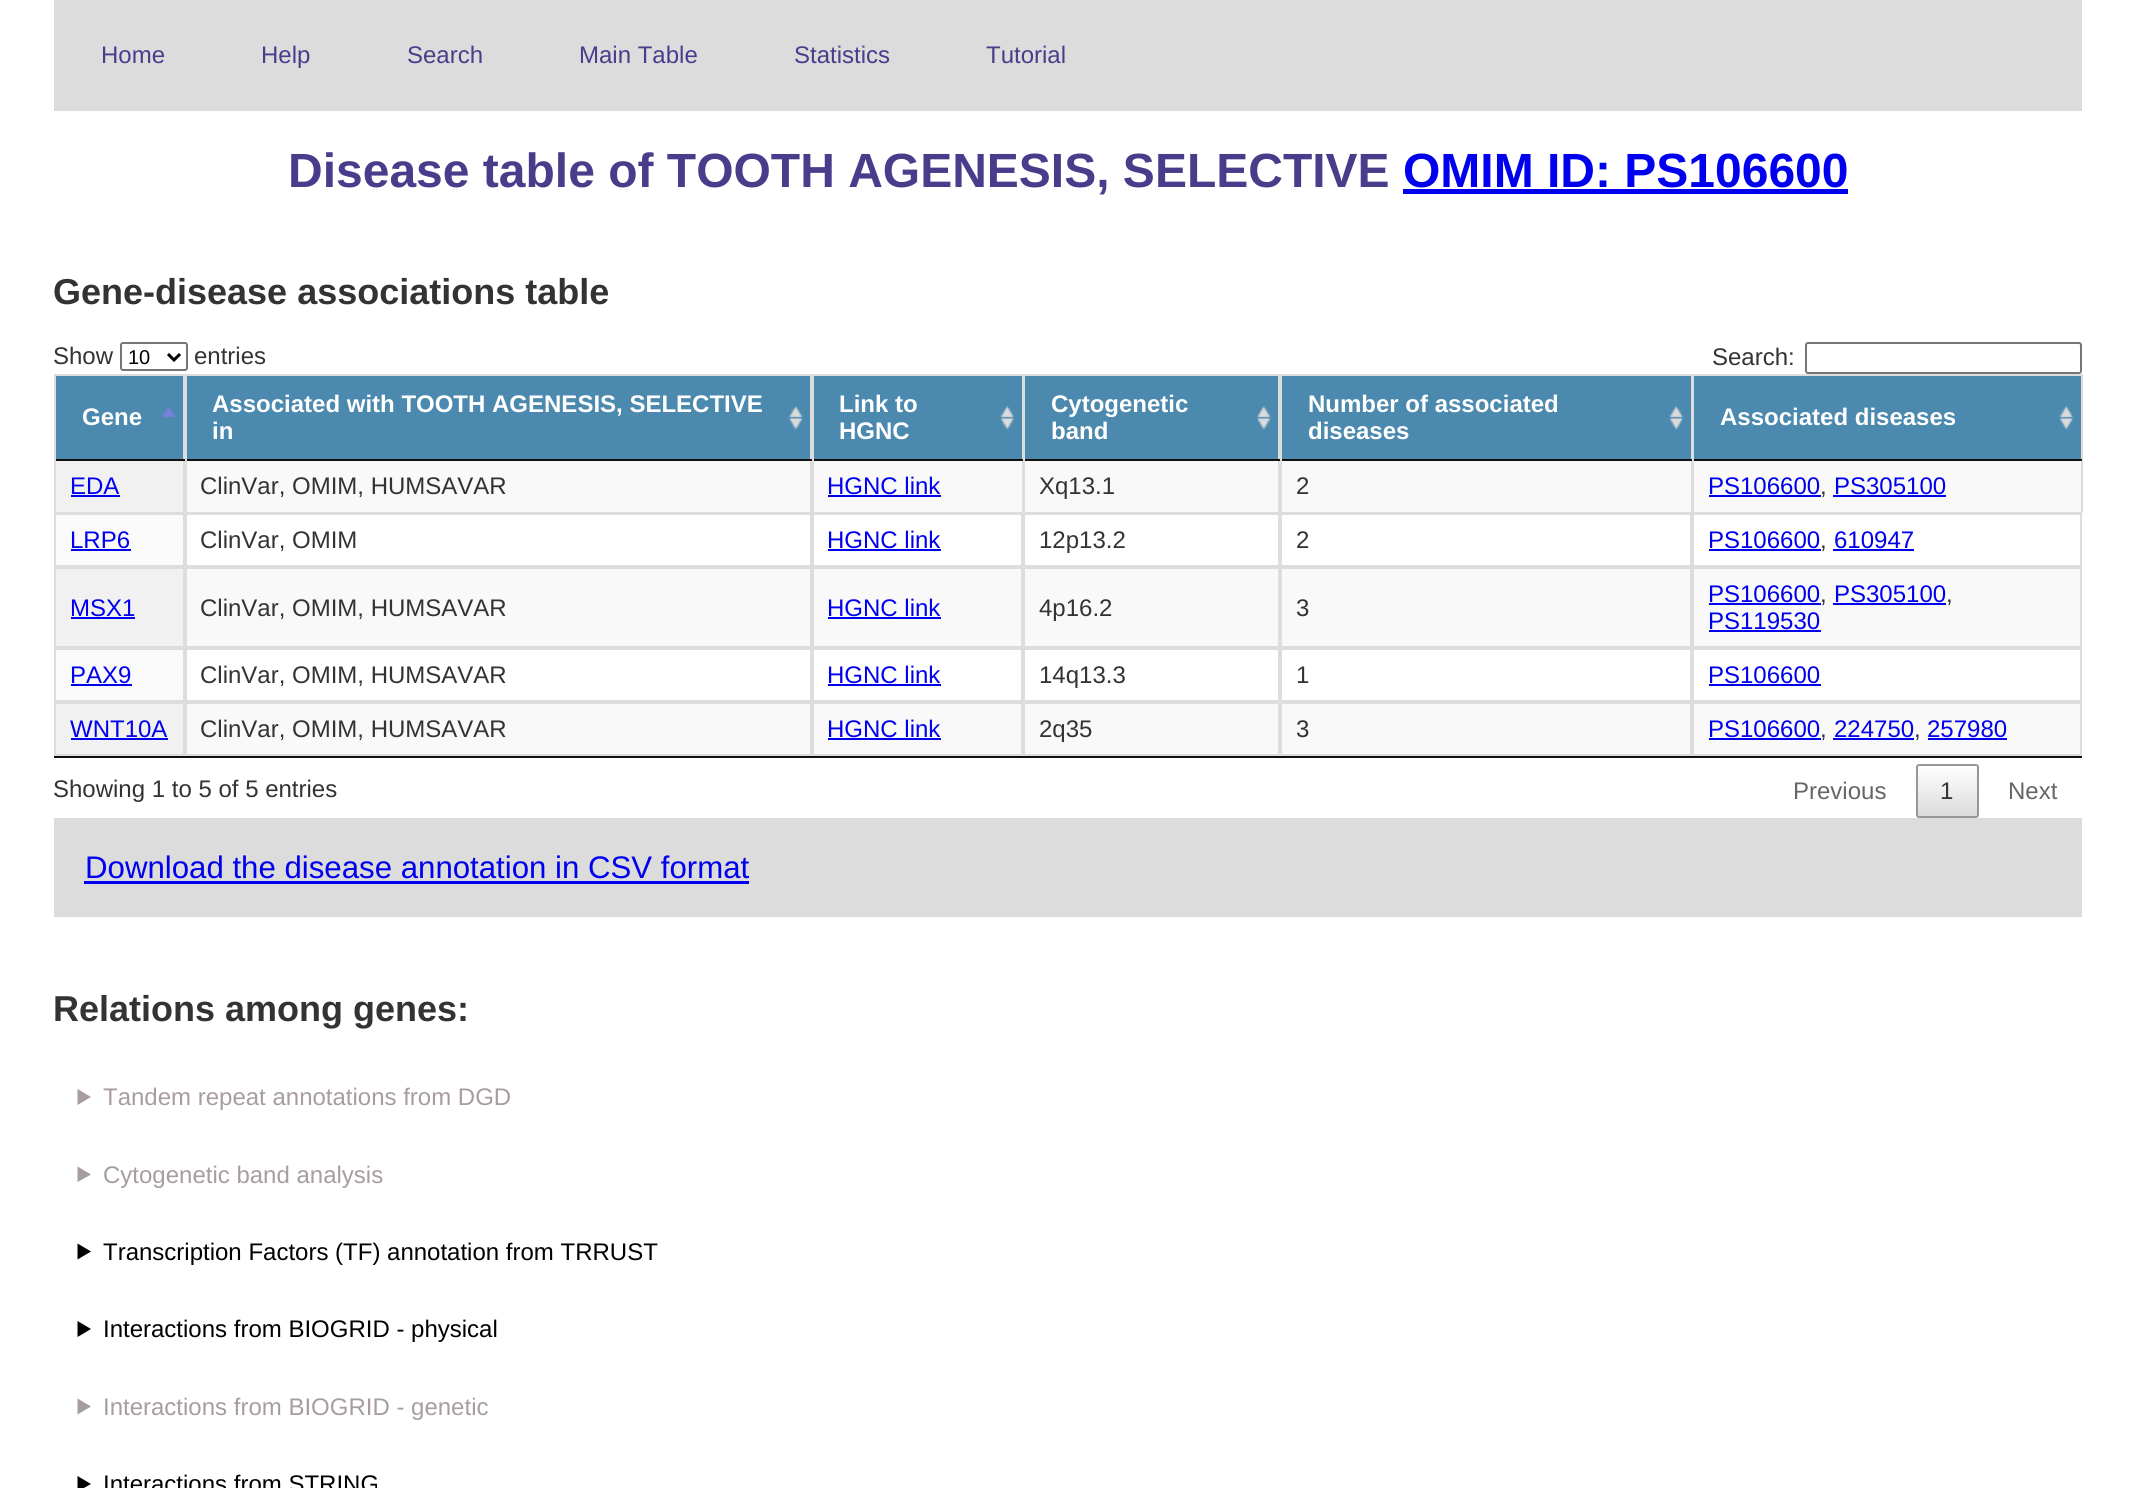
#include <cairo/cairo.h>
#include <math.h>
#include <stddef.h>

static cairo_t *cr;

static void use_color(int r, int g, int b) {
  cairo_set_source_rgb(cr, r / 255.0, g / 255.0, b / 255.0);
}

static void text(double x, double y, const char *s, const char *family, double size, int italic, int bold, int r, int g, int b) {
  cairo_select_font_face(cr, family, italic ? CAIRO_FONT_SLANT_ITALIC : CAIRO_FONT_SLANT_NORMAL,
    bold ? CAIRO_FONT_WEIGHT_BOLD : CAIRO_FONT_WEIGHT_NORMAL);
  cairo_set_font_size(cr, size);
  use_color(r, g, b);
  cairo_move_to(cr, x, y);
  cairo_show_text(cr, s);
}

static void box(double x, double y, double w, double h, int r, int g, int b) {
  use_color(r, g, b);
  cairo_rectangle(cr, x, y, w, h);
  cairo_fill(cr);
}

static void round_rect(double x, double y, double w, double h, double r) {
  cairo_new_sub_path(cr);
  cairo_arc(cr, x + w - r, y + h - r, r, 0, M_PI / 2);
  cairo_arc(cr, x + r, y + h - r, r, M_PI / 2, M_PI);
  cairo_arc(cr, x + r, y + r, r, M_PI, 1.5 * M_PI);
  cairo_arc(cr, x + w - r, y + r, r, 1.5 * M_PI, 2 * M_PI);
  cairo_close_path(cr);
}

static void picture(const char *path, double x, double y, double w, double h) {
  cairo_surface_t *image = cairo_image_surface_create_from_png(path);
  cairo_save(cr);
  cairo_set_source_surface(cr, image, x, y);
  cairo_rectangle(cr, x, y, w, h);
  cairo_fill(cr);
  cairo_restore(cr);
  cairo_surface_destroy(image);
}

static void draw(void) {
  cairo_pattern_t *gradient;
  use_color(255, 255, 255);
  cairo_paint(cr);
  box(54, 0, 2028, 111, 220, 220, 220);
  box(1403, 189, 445, 5, 0, 0, 238);
  round_rect(121, 343, 66, 27, 2);
  use_color(118, 118, 118);
  cairo_stroke(cr);
  cairo_new_path(cr);
  cairo_move_to(cr, 168, 354);
  cairo_line_to(cr, 174, 360);
  cairo_line_to(cr, 180, 354);
  use_color(0, 0, 0);
  cairo_set_line_width(cr, 3);
  cairo_stroke(cr);
  round_rect(1806, 343, 275, 30, 2);
  use_color(118, 118, 118);
  cairo_set_line_width(cr, 2);
  cairo_stroke(cr);
  box(54, 756, 2028, 2, 17, 17, 17);
  box(56, 376, 127, 83, 76, 137, 175);
  picture("img_01.png", 162, 406, 14, 12);
  box(54, 374, 2028, 2, 221, 221, 221);
  box(183, 374, 2, 139, 221, 221, 221);
  box(54, 459, 131, 2, 17, 17, 17);
  box(54, 374, 2, 87, 221, 221, 221);
  box(187, 376, 623, 83, 76, 137, 175);
  picture("img_02.png", 788, 406, 15, 24);
  box(810, 374, 2, 87, 221, 221, 221);
  box(185, 459, 627, 2, 17, 17, 17);
  box(185, 374, 2, 87, 221, 221, 221);
  box(814, 376, 208, 83, 76, 137, 175);
  picture("img_03.png", 1000, 406, 15, 24);
  box(1022, 374, 1, 87, 221, 221, 221);
  box(812, 459, 211, 2, 17, 17, 17);
  box(812, 374, 2, 87, 221, 221, 221);
  box(1025, 376, 253, 83, 76, 137, 175);
  picture("img_02.png", 1256, 406, 15, 24);
  box(1278, 374, 2, 87, 221, 221, 221);
  box(1023, 459, 257, 2, 17, 17, 17);
  box(1023, 374, 2, 87, 221, 221, 221);
  box(1282, 376, 409, 83, 76, 137, 175);
  picture("img_03.png", 1669, 406, 15, 24);
  box(1691, 374, 1, 87, 221, 221, 221);
  box(1280, 459, 412, 2, 17, 17, 17);
  box(1280, 374, 2, 87, 221, 221, 221);
  box(1694, 376, 387, 83, 76, 137, 175);
  picture("img_04.png", 2059, 406, 15, 24);
  box(2081, 374, 2, 139, 221, 221, 221);
  box(1692, 459, 390, 2, 17, 17, 17);
  box(1692, 374, 2, 87, 221, 221, 221);
  box(187, 461, 1894, 51, 249, 249, 249);
  box(56, 461, 127, 51, 241, 241, 241);
  box(54, 512, 131, 1, 221, 221, 221);
  box(54, 461, 2, 52, 221, 221, 221);
  box(71, 495, 49, 2, 0, 0, 238);
  box(810, 461, 2, 52, 221, 221, 221);
  box(185, 512, 627, 1, 221, 221, 221);
  box(185, 461, 2, 52, 221, 221, 221);
  box(1022, 461, 1, 52, 221, 221, 221);
  box(812, 512, 211, 1, 221, 221, 221);
  box(812, 461, 2, 52, 221, 221, 221);
  box(828, 495, 113, 2, 0, 0, 238);
  box(1278, 461, 2, 52, 221, 221, 221);
  box(1023, 512, 257, 1, 221, 221, 221);
  box(1023, 461, 2, 52, 221, 221, 221);
  box(1691, 461, 1, 52, 221, 221, 221);
  box(1280, 512, 802, 1, 221, 221, 221);
  box(1280, 461, 2, 52, 221, 221, 221);
  box(1692, 461, 2, 52, 221, 221, 221);
  box(1709, 495, 112, 2, 0, 0, 238);
  box(1833, 495, 113, 2, 0, 0, 238);
  use_color(250, 250, 250);
  cairo_rectangle(cr, 55, 514, 129, 52);
  cairo_fill_preserve(cr);
  use_color(221, 221, 221);
  cairo_stroke(cr);
  box(71, 549, 60, 2, 0, 0, 238);
  cairo_rectangle(cr, 186, 514, 625, 52);
  use_color(221, 221, 221);
  cairo_stroke(cr);
  cairo_rectangle(cr, 813, 514, 209, 52);
  cairo_stroke(cr);
  box(828, 549, 113, 2, 0, 0, 238);
  cairo_rectangle(cr, 1024, 514, 255, 52);
  use_color(221, 221, 221);
  cairo_stroke(cr);
  cairo_rectangle(cr, 1281, 514, 410, 52);
  cairo_stroke(cr);
  cairo_rectangle(cr, 1693, 514, 388, 52);
  cairo_stroke(cr);
  box(1709, 549, 112, 2, 0, 0, 238);
  box(1833, 549, 81, 2, 0, 0, 238);
  box(187, 569, 1893, 77, 249, 249, 249);
  use_color(241, 241, 241);
  cairo_rectangle(cr, 55, 568, 129, 79);
  cairo_fill_preserve(cr);
  use_color(221, 221, 221);
  cairo_stroke(cr);
  box(71, 617, 64, 2, 0, 0, 238);
  cairo_rectangle(cr, 186, 568, 625, 79);
  use_color(221, 221, 221);
  cairo_stroke(cr);
  cairo_rectangle(cr, 813, 568, 209, 79);
  cairo_stroke(cr);
  box(828, 617, 113, 2, 0, 0, 238);
  cairo_rectangle(cr, 1024, 568, 255, 79);
  use_color(221, 221, 221);
  cairo_stroke(cr);
  cairo_rectangle(cr, 1281, 568, 410, 79);
  cairo_stroke(cr);
  cairo_rectangle(cr, 1693, 568, 388, 79);
  cairo_stroke(cr);
  box(1709, 603, 112, 2, 0, 0, 238);
  box(1833, 603, 113, 2, 0, 0, 238);
  box(1709, 630, 112, 2, 0, 0, 238);
  use_color(250, 250, 250);
  cairo_rectangle(cr, 55, 649, 129, 52);
  cairo_fill_preserve(cr);
  use_color(221, 221, 221);
  cairo_stroke(cr);
  box(71, 684, 61, 2, 0, 0, 238);
  cairo_rectangle(cr, 186, 649, 625, 52);
  use_color(221, 221, 221);
  cairo_stroke(cr);
  cairo_rectangle(cr, 813, 649, 209, 52);
  cairo_stroke(cr);
  box(828, 684, 113, 2, 0, 0, 238);
  cairo_rectangle(cr, 1024, 649, 255, 52);
  use_color(221, 221, 221);
  cairo_stroke(cr);
  cairo_rectangle(cr, 1281, 649, 410, 52);
  cairo_stroke(cr);
  cairo_rectangle(cr, 1693, 649, 388, 52);
  cairo_stroke(cr);
  box(1709, 684, 112, 2, 0, 0, 238);
  box(187, 704, 1893, 50, 249, 249, 249);
  use_color(241, 241, 241);
  cairo_rectangle(cr, 55, 703, 129, 52);
  cairo_fill_preserve(cr);
  use_color(221, 221, 221);
  cairo_stroke(cr);
  box(71, 738, 97, 2, 0, 0, 238);
  cairo_rectangle(cr, 186, 703, 625, 52);
  use_color(221, 221, 221);
  cairo_stroke(cr);
  cairo_rectangle(cr, 813, 703, 209, 52);
  cairo_stroke(cr);
  box(828, 738, 113, 2, 0, 0, 238);
  cairo_rectangle(cr, 1024, 703, 255, 52);
  use_color(221, 221, 221);
  cairo_stroke(cr);
  cairo_rectangle(cr, 1281, 703, 410, 52);
  cairo_stroke(cr);
  cairo_rectangle(cr, 1693, 703, 388, 52);
  cairo_stroke(cr);
  box(1709, 738, 112, 2, 0, 0, 238);
  box(1833, 738, 81, 2, 0, 0, 238);
  box(1928, 738, 79, 2, 0, 0, 238);
  cairo_save(cr);
  round_rect(1916, 764, 63, 54, 3);
  cairo_clip(cr);
  gradient = cairo_pattern_create_linear(1947, 765, 1947, 816);
  cairo_pattern_add_color_stop_rgba(gradient, 0, 1, 1, 1, 1);
  cairo_pattern_add_color_stop_rgba(gradient, 1, 0.863, 0.863, 0.863, 1);
  cairo_set_source(cr, gradient);
  cairo_pattern_destroy(gradient);
  cairo_rectangle(cr, 1916, 765, 63, 51);
  cairo_fill(cr);
  cairo_restore(cr);
  round_rect(1917, 765, 61, 52, 2);
  use_color(151, 151, 151);
  cairo_stroke(cr);
  box(54, 818, 2028, 99, 220, 220, 220);
  box(84, 881, 665, 3, 0, 0, 238);
  use_color(167, 157, 157);
  cairo_new_path(cr);
  cairo_move_to(cr, 77.5, 1089);
  cairo_line_to(cr, 91, 1097);
  cairo_line_to(cr, 77.5, 1105);
  cairo_close_path(cr);
  cairo_fill(cr);
  cairo_new_path(cr);
  cairo_move_to(cr, 77.5, 1166.5);
  cairo_line_to(cr, 91, 1174.5);
  cairo_line_to(cr, 77.5, 1182);
  cairo_close_path(cr);
  cairo_fill(cr);
  use_color(0, 0, 0);
  cairo_new_path(cr);
  cairo_move_to(cr, 77.5, 1243.5);
  cairo_line_to(cr, 91, 1251.5);
  cairo_line_to(cr, 77.5, 1259.5);
  cairo_close_path(cr);
  cairo_fill(cr);
  cairo_new_path(cr);
  cairo_move_to(cr, 77.5, 1321);
  cairo_line_to(cr, 91, 1329);
  cairo_line_to(cr, 77.5, 1337);
  cairo_close_path(cr);
  cairo_fill(cr);
  use_color(167, 157, 157);
  cairo_new_path(cr);
  cairo_move_to(cr, 77.5, 1398.5);
  cairo_line_to(cr, 91, 1406.5);
  cairo_line_to(cr, 77.5, 1414.5);
  cairo_close_path(cr);
  cairo_fill(cr);
  use_color(0, 0, 0);
  cairo_new_path(cr);
  cairo_move_to(cr, 77.5, 1476);
  cairo_line_to(cr, 91, 1484);
  cairo_line_to(cr, 77.5, 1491.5);
  cairo_close_path(cr);
  cairo_fill(cr);
  text(101, 63, "Home", "Liberation Sans", 24, 0, 0, 72, 61, 139);
  text(261, 63, "Help", "Liberation Sans", 24, 0, 0, 72, 61, 139);
  text(407, 63, "Search", "Liberation Sans", 24, 0, 0, 72, 61, 139);
  text(579, 63, "Main Table", "Liberation Sans", 24, 0, 0, 72, 61, 139);
  text(794, 63, "Statistics", "Liberation Sans", 24, 0, 0, 72, 61, 139);
  text(986, 63, "Tutorial", "Liberation Sans", 24, 0, 0, 72, 61, 139);
  text(288, 187, "Disease table of TOOTH AGENESIS, SELECTIVE", "Liberation Sans", 48, 0, 1, 72, 61, 139);
  text(1403, 187, "OMIM ID: PS106600", "Liberation Sans", 48, 0, 1, 0, 0, 238);
  text(53, 304, "Gene-disease associations table", "Liberation Sans", 36, 0, 1, 51, 51, 51);
  text(53, 364, "Show", "Liberation Sans", 24, 0, 0, 51, 51, 51);
  text(128, 364, "10", "Liberation Sans", 20, 0, 0, 0, 0, 0);
  text(194, 364, "entries", "Liberation Sans", 24, 0, 0, 51, 51, 51);
  text(1712, 365, "Search:", "Liberation Sans", 24, 0, 0, 51, 51, 51);
  text(82, 425, "Gene", "Liberation Sans", 24, 0, 1, 255, 255, 255);
  text(212, 412, "Associated with TOOTH AGENESIS, SELECTIVE", "Liberation Sans", 24, 0, 1, 255, 255, 255);
  text(212, 439, "in", "Liberation Sans", 24, 0, 1, 255, 255, 255);
  text(839, 412, "Link to", "Liberation Sans", 24, 0, 1, 255, 255, 255);
  text(839, 439, "HGNC", "Liberation Sans", 24, 0, 1, 255, 255, 255);
  text(1051, 412, "Cytogenetic", "Liberation Sans", 24, 0, 1, 255, 255, 255);
  text(1051, 439, "band", "Liberation Sans", 24, 0, 1, 255, 255, 255);
  text(1308, 412, "Number of associated", "Liberation Sans", 24, 0, 1, 255, 255, 255);
  text(1308, 439, "diseases", "Liberation Sans", 24, 0, 1, 255, 255, 255);
  text(1720, 425, "Associated diseases", "Liberation Sans", 24, 0, 1, 255, 255, 255);
  text(70, 494, "EDA", "Liberation Sans", 24, 0, 0, 0, 0, 238);
  text(200, 494, "ClinVar, OMIM, HUMSAVAR", "Liberation Sans", 24, 0, 0, 51, 51, 51);
  text(827, 494, "HGNC link", "Liberation Sans", 24, 0, 0, 0, 0, 238);
  text(1039, 494, "Xq13.1", "Liberation Sans", 24, 0, 0, 51, 51, 51);
  text(1296, 494, "2", "Liberation Sans", 24, 0, 0, 51, 51, 51);
  text(1708, 494, "PS106600", "Liberation Sans", 24, 0, 0, 0, 0, 238);
  text(1820, 494, ",", "Liberation Sans", 24, 0, 0, 51, 51, 51);
  text(1834, 494, "PS305100", "Liberation Sans", 24, 0, 0, 0, 0, 238);
  text(70, 548, "LRP6", "Liberation Sans", 24, 0, 0, 0, 0, 238);
  text(200, 548, "ClinVar, OMIM", "Liberation Sans", 24, 0, 0, 51, 51, 51);
  text(827, 548, "HGNC link", "Liberation Sans", 24, 0, 0, 0, 0, 238);
  text(1039, 548, "12p13.2", "Liberation Sans", 24, 0, 0, 51, 51, 51);
  text(1296, 548, "2", "Liberation Sans", 24, 0, 0, 51, 51, 51);
  text(1708, 548, "PS106600", "Liberation Sans", 24, 0, 0, 0, 0, 238);
  text(1820, 548, ",", "Liberation Sans", 24, 0, 0, 51, 51, 51);
  text(1834, 548, "610947", "Liberation Sans", 24, 0, 0, 0, 0, 238);
  text(70, 616, "MSX1", "Liberation Sans", 24, 0, 0, 0, 0, 238);
  text(200, 616, "ClinVar, OMIM, HUMSAVAR", "Liberation Sans", 24, 0, 0, 51, 51, 51);
  text(827, 616, "HGNC link", "Liberation Sans", 24, 0, 0, 0, 0, 238);
  text(1039, 616, "4p16.2", "Liberation Sans", 24, 0, 0, 51, 51, 51);
  text(1296, 616, "3", "Liberation Sans", 24, 0, 0, 51, 51, 51);
  text(1708, 602, "PS106600", "Liberation Sans", 24, 0, 0, 0, 0, 238);
  text(1820, 602, ",", "Liberation Sans", 24, 0, 0, 51, 51, 51);
  text(1834, 602, "PS305100", "Liberation Sans", 24, 0, 0, 0, 0, 238);
  text(1946, 602, ",", "Liberation Sans", 24, 0, 0, 51, 51, 51);
  text(1708, 629, "PS119530", "Liberation Sans", 24, 0, 0, 0, 0, 238);
  text(70, 683, "PAX9", "Liberation Sans", 24, 0, 0, 0, 0, 238);
  text(200, 683, "ClinVar, OMIM, HUMSAVAR", "Liberation Sans", 24, 0, 0, 51, 51, 51);
  text(827, 683, "HGNC link", "Liberation Sans", 24, 0, 0, 0, 0, 238);
  text(1039, 683, "14q13.3", "Liberation Sans", 24, 0, 0, 51, 51, 51);
  text(1296, 683, "1", "Liberation Sans", 24, 0, 0, 51, 51, 51);
  text(1708, 683, "PS106600", "Liberation Sans", 24, 0, 0, 0, 0, 238);
  text(70, 737, "WNT10A", "Liberation Sans", 24, 0, 0, 0, 0, 238);
  text(200, 737, "ClinVar, OMIM, HUMSAVAR", "Liberation Sans", 24, 0, 0, 51, 51, 51);
  text(827, 737, "HGNC link", "Liberation Sans", 24, 0, 0, 0, 0, 238);
  text(1039, 737, "2q35", "Liberation Sans", 24, 0, 0, 51, 51, 51);
  text(1296, 737, "3", "Liberation Sans", 24, 0, 0, 51, 51, 51);
  text(1708, 737, "PS106600", "Liberation Sans", 24, 0, 0, 0, 0, 238);
  text(1820, 737, ",", "Liberation Sans", 24, 0, 0, 51, 51, 51);
  text(1834, 737, "224750", "Liberation Sans", 24, 0, 0, 0, 0, 238);
  text(1914, 737, ",", "Liberation Sans", 24, 0, 0, 51, 51, 51);
  text(1927, 737, "257980", "Liberation Sans", 24, 0, 0, 0, 0, 238);
  text(53, 797, "Showing 1 to 5 of 5 entries", "Liberation Sans", 24, 0, 0, 51, 51, 51);
  text(1793, 799, "Previous", "Liberation Sans", 24, 0, 0, 102, 102, 102);
  text(1940, 799, "1", "Liberation Sans", 24, 0, 0, 51, 51, 51);
  text(2008, 799, "Next", "Liberation Sans", 24, 0, 0, 102, 102, 102);
  text(85, 878, "Download the disease annotation in CSV format", "Liberation Sans", 31.2, 0, 0, 0, 0, 238);
  text(53, 1021, "Relations among genes:", "Liberation Sans", 36, 0, 1, 51, 51, 51);
  text(103, 1105, "Tandem repeat annotations from DGD", "Liberation Sans", 24, 0, 0, 167, 157, 157);
  text(103, 1183, "Cytogenetic band analysis", "Liberation Sans", 24, 0, 0, 167, 157, 157);
  text(103, 1260, "Transcription Factors (TF) annotation from TRRUST", "Liberation Sans", 24, 0, 0, 0, 0, 0);
  text(103, 1337, "Interactions from BIOGRID - physical", "Liberation Sans", 24, 0, 0, 0, 0, 0);
  text(103, 1415, "Interactions from BIOGRID - genetic", "Liberation Sans", 24, 0, 0, 167, 157, 157);
  text(103, 1492, "Interactions from STRING", "Liberation Sans", 24, 0, 0, 0, 0, 0);
}

int main(void) {
  cairo_surface_t *surface = cairo_image_surface_create(CAIRO_FORMAT_RGB24, 2135, 1488);
  cr = cairo_create(surface);
  cairo_font_options_t *options = cairo_font_options_create();
  cairo_font_options_set_hint_metrics(options, CAIRO_HINT_METRICS_OFF);
  cairo_font_options_set_hint_style(options, CAIRO_HINT_STYLE_NONE);
  cairo_set_font_options(cr, options);
  cairo_set_miter_limit(cr, 4);
  draw();
  cairo_surface_write_to_png(surface, "out.png");
  cairo_font_options_destroy(options);
  cairo_destroy(cr);
  cairo_surface_destroy(surface);
  return 0;
}
